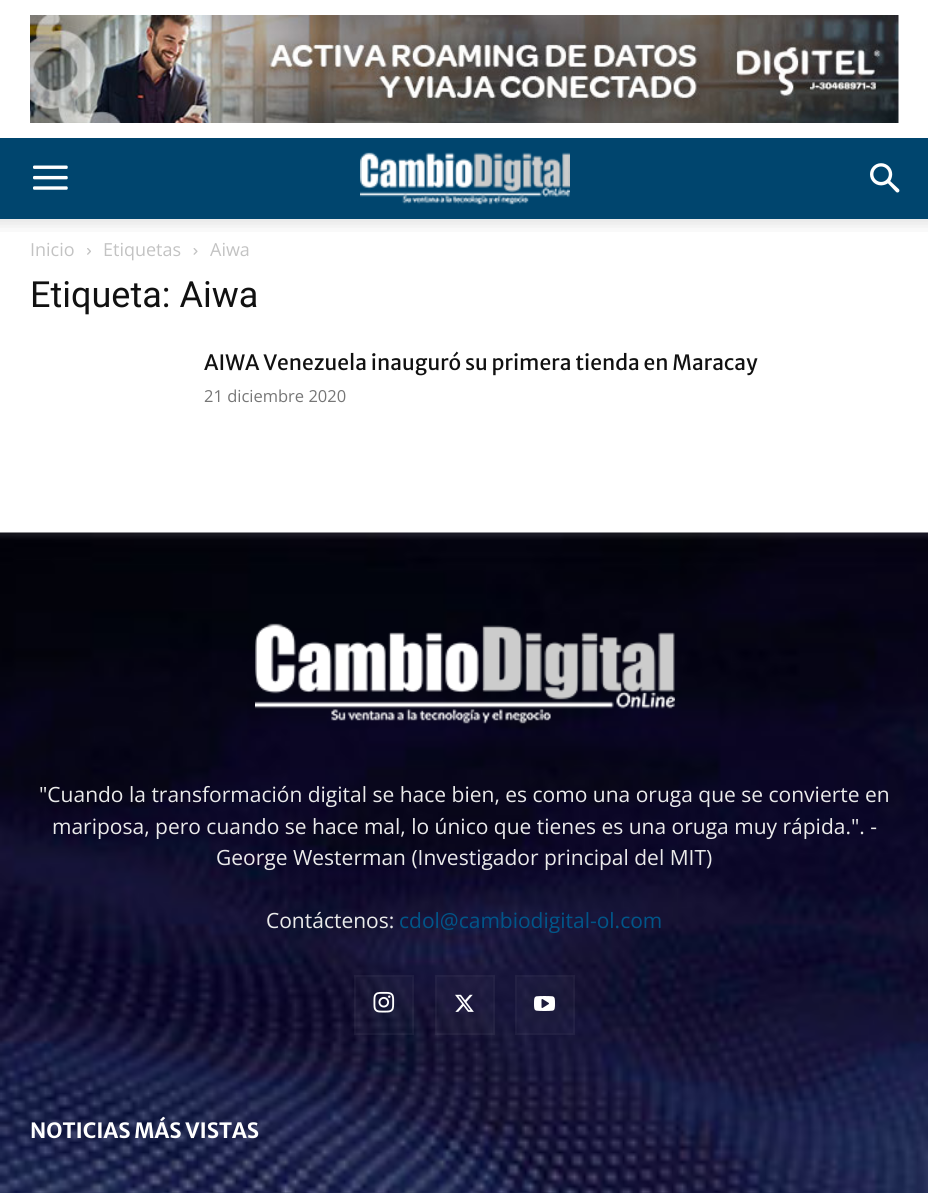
#include <cairo/cairo.h>
#include <math.h>
#include <stddef.h>

static cairo_t *cr;

static void use_color(int r, int g, int b) {
  cairo_set_source_rgb(cr, r / 255.0, g / 255.0, b / 255.0);
}

static void text(double x, double y, const char *s, const char *family, double size, int italic, int bold, int r, int g, int b) {
  cairo_select_font_face(cr, family, italic ? CAIRO_FONT_SLANT_ITALIC : CAIRO_FONT_SLANT_NORMAL,
    bold ? CAIRO_FONT_WEIGHT_BOLD : CAIRO_FONT_WEIGHT_NORMAL);
  cairo_set_font_size(cr, size);
  use_color(r, g, b);
  cairo_move_to(cr, x, y);
  cairo_show_text(cr, s);
}

static void box(double x, double y, double w, double h, int r, int g, int b) {
  use_color(r, g, b);
  cairo_rectangle(cr, x, y, w, h);
  cairo_fill(cr);
}

static void picture(const char *path, double x, double y, double w, double h) {
  cairo_surface_t *image = cairo_image_surface_create_from_png(path);
  cairo_save(cr);
  cairo_set_source_surface(cr, image, x, y);
  cairo_rectangle(cr, x, y, w, h);
  cairo_fill(cr);
  cairo_restore(cr);
  cairo_surface_destroy(image);
}

static void draw(void) {
  use_color(255, 255, 255);
  cairo_paint(cr);
  picture("img_01.png", 30, 15, 869, 108);
  box(0, 138, 928, 81, 0, 69, 110);
  picture("img_02.png", 33, 165, 35, 25);
  picture("img_03.png", 360, 152, 210, 53);
  picture("img_04.png", 870, 163, 30, 30);
  picture("img_05.png", 0, 219, 928, 13);
  picture("img_06.png", 87, 248, 4, 7);
  picture("img_07.png", 193, 248, 5, 7);
  picture("img_08.png", 0, 532, 928, 661);
  picture("img_09.png", 255, 623, 420, 101);
  cairo_set_source_rgba(cr, 1, 1, 1, 0.03);
  cairo_rectangle(cr, 354, 975, 60, 60);
  cairo_fill(cr);
  picture("img_10.png", 373, 991, 22, 22);
  cairo_rectangle(cr, 355, 976, 58, 58);
  cairo_stroke(cr);
  cairo_rectangle(cr, 435, 975, 60, 60);
  cairo_fill(cr);
  picture("img_11.png", 455, 994, 19, 18);
  cairo_rectangle(cr, 436, 976, 58, 58);
  cairo_stroke(cr);
  cairo_rectangle(cr, 515, 975, 60, 60);
  cairo_fill(cr);
  picture("img_12.png", 534, 996, 21, 15);
  cairo_rectangle(cr, 516, 976, 58, 58);
  cairo_stroke(cr);
  text(30, 256, "Inicio", "Open Sans", 18, 0, 0, 195, 195, 195);
  text(103, 256, "Etiquetas", "Open Sans", 18, 0, 0, 195, 195, 195);
  text(210, 256, "Aiwa", "Open Sans", 18, 0, 0, 195, 195, 195);
  text(30, 307, "Etiqueta: Aiwa", "Roboto", 36, 0, 0, 17, 17, 17);
  text(204, 370, "AIWA Venezuela inauguró su primera tienda en Maracay", "Merriweather Sans", 21, 0, 0, 17, 17, 17);
  text(204, 402, "21 diciembre 2020", "Open Sans", 16.5, 0, 0, 118, 118, 118);
  text(39, 802, "\"Cuando la transformación digital se hace bien, es como una oruga que se convierte en", "Open Sans", 21, 0, 0, 234, 234, 234);
  text(52, 834, "mariposa, pero cuando se hace mal, lo único que tienes es una oruga muy rápida.\". -", "Open Sans", 21, 0, 0, 234, 234, 234);
  text(216, 865, "George Westerman (Investigador principal del MIT)", "Open Sans", 21, 0, 0, 234, 234, 234);
  text(266, 928, "Contáctenos:", "Open Sans", 21, 0, 0, 234, 234, 234);
  text(399, 928, "cdol@cambiodigital-ol.com", "Open Sans", 21, 0, 0, 0, 86, 137);
  text(30, 1138, "NOTICIAS MÁS VISTAS", "Merriweather Sans", 21, 0, 1, 255, 255, 255);
}

int main(void) {
  cairo_surface_t *surface = cairo_image_surface_create(CAIRO_FORMAT_RGB24, 928, 1193);
  cr = cairo_create(surface);
  cairo_font_options_t *options = cairo_font_options_create();
  cairo_font_options_set_hint_metrics(options, CAIRO_HINT_METRICS_OFF);
  cairo_font_options_set_hint_style(options, CAIRO_HINT_STYLE_NONE);
  cairo_set_font_options(cr, options);
  cairo_set_miter_limit(cr, 4);
  draw();
  cairo_surface_write_to_png(surface, "out.png");
  cairo_font_options_destroy(options);
  cairo_destroy(cr);
  cairo_surface_destroy(surface);
  return 0;
}
